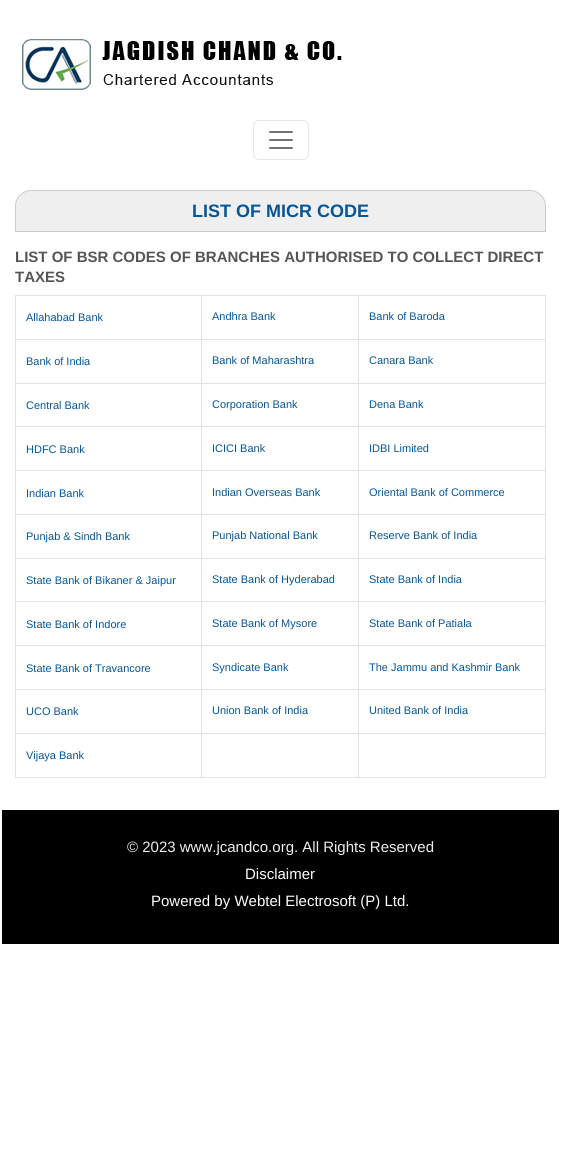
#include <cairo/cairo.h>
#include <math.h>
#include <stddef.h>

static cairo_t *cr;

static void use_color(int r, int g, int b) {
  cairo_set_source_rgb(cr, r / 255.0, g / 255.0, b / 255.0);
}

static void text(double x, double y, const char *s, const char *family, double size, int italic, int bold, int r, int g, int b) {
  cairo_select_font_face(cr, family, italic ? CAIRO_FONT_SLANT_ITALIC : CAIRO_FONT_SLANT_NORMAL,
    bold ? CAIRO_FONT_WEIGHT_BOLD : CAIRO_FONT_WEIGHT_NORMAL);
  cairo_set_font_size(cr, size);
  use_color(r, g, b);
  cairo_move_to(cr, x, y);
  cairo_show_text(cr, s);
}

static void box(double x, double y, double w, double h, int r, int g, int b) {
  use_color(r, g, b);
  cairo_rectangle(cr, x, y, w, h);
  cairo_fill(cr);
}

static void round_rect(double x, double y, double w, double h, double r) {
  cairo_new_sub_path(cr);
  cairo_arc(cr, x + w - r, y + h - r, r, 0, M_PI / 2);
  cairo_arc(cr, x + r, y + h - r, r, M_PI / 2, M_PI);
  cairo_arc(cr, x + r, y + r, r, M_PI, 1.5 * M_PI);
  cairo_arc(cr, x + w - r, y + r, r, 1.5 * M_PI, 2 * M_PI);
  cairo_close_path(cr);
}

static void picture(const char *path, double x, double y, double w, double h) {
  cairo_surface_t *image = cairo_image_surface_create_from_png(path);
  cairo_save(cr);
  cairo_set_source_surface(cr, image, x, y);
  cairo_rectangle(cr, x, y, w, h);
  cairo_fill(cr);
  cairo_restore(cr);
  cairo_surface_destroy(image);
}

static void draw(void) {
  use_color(255, 255, 255);
  cairo_paint(cr);
  picture("img_01.png", 22, 39, 320, 51);
  round_rect(253.5, 120.5, 55, 39, 5.5);
  use_color(230, 230, 230);
  cairo_set_line_width(cr, 1);
  cairo_stroke(cr);
  picture("img_02.png", 269, 131, 24, 18);
  use_color(239, 239, 239);
  cairo_new_path(cr);
  cairo_move_to(cr, 31, 190.5);
  cairo_line_to(cr, 530, 190.5);
  cairo_curve_to(cr, 538.5, 190.5, 545.5, 197.5, 545.5, 206);
  cairo_line_to(cr, 545.5, 231.5);
  cairo_line_to(cr, 15.5, 231.5);
  cairo_line_to(cr, 15.5, 206);
  cairo_curve_to(cr, 15.5, 197.5, 22.5, 190.5, 31, 190.5);
  cairo_close_path(cr);
  cairo_fill_preserve(cr);
  use_color(204, 204, 204);
  cairo_stroke(cr);
  box(15, 295, 531, 1, 222, 226, 230);
  box(545, 295, 1, 483, 222, 226, 230);
  box(15, 777, 531, 1, 222, 226, 230);
  box(15, 295, 1, 483, 222, 226, 230);
  box(15, 339, 531, 1, 222, 226, 230);
  box(15, 383, 531, 1, 222, 226, 230);
  box(15, 426, 531, 1, 222, 226, 230);
  box(15, 470, 531, 1, 222, 226, 230);
  box(15, 514, 531, 1, 222, 226, 230);
  box(15, 558, 531, 1, 222, 226, 230);
  box(15, 601, 531, 1, 222, 226, 230);
  box(15, 645, 531, 1, 222, 226, 230);
  box(15, 689, 531, 1, 222, 226, 230);
  box(15, 733, 531, 1, 222, 226, 230);
  box(201, 295, 1, 483, 222, 226, 230);
  box(358, 295, 1, 483, 222, 226, 230);
  box(2, 810, 557, 134, 0, 0, 0);
  text(192, 217, "LIST OF MICR CODE", "Liberation Sans", 18, 0, 1, 6, 86, 149);
  text(15, 262, "LIST OF BSR CODES OF BRANCHES AUTHORISED TO COLLECT DIRECT", "Liberation Sans", 15, 0, 1, 85, 85, 85);
  text(15, 282, "TAXES", "Liberation Sans", 15, 0, 1, 85, 85, 85);
  text(26, 321, "Allahabad Bank", "Liberation Sans", 11, 0, 0, 6, 86, 149);
  text(212, 320, "Andhra Bank", "Liberation Sans", 11, 0, 0, 6, 86, 149);
  text(369, 320, "Bank of Baroda", "Liberation Sans", 11, 0, 0, 6, 86, 149);
  text(26, 365, "Bank of India", "Liberation Sans", 11, 0, 0, 6, 86, 149);
  text(212, 364, "Bank of Maharashtra", "Liberation Sans", 11, 0, 0, 6, 86, 149);
  text(369, 364, "Canara Bank", "Liberation Sans", 11, 0, 0, 6, 86, 149);
  text(26, 409, "Central Bank", "Liberation Sans", 11, 0, 0, 6, 86, 149);
  text(212, 408, "Corporation Bank", "Liberation Sans", 11, 0, 0, 6, 86, 149);
  text(369, 408, "Dena Bank", "Liberation Sans", 11, 0, 0, 6, 86, 149);
  text(26, 453, "HDFC Bank", "Liberation Sans", 11, 0, 0, 6, 86, 149);
  text(212, 452, "ICICI Bank", "Liberation Sans", 11, 0, 0, 6, 86, 149);
  text(369, 452, "IDBI Limited", "Liberation Sans", 11, 0, 0, 6, 86, 149);
  text(26, 497, "Indian Bank", "Liberation Sans", 11, 0, 0, 6, 86, 149);
  text(212, 496, "Indian Overseas Bank", "Liberation Sans", 11, 0, 0, 6, 86, 149);
  text(369, 496, "Oriental Bank of Commerce", "Liberation Sans", 11, 0, 0, 6, 86, 149);
  text(26, 540, "Punjab & Sindh Bank", "Liberation Sans", 11, 0, 0, 6, 86, 149);
  text(212, 539, "Punjab National Bank", "Liberation Sans", 11, 0, 0, 6, 86, 149);
  text(369, 539, "Reserve Bank of India", "Liberation Sans", 11, 0, 0, 6, 86, 149);
  text(26, 584, "State Bank of Bikaner & Jaipur", "Liberation Sans", 11, 0, 0, 6, 86, 149);
  text(212, 583, "State Bank of Hyderabad", "Liberation Sans", 11, 0, 0, 6, 86, 149);
  text(369, 583, "State Bank of India", "Liberation Sans", 11, 0, 0, 6, 86, 149);
  text(26, 628, "State Bank of Indore", "Liberation Sans", 11, 0, 0, 6, 86, 149);
  text(212, 627, "State Bank of Mysore", "Liberation Sans", 11, 0, 0, 6, 86, 149);
  text(369, 627, "State Bank of Patiala", "Liberation Sans", 11, 0, 0, 6, 86, 149);
  text(26, 672, "State Bank of Travancore", "Liberation Sans", 11, 0, 0, 6, 86, 149);
  text(212, 671, "Syndicate Bank", "Liberation Sans", 11, 0, 0, 6, 86, 149);
  text(369, 671, "The Jammu and Kashmir Bank", "Liberation Sans", 11, 0, 0, 6, 86, 149);
  text(26, 715, "UCO Bank", "Liberation Sans", 11, 0, 0, 6, 86, 149);
  text(212, 714, "Union Bank of India", "Liberation Sans", 11, 0, 0, 6, 86, 149);
  text(369, 714, "United Bank of India", "Liberation Sans", 11, 0, 0, 6, 86, 149);
  text(26, 759, "Vijaya Bank", "Liberation Sans", 11, 0, 0, 6, 86, 149);
  text(127, 852, "© 2023 www.jcandco.org. All Rights Reserved", "Liberation Sans", 15, 0, 0, 238, 238, 238);
  text(245, 879, "Disclaimer", "Liberation Sans", 15, 0, 0, 255, 255, 255);
  text(151, 906, "Powered by Webtel Electrosoft (P) Ltd.", "Liberation Sans", 15, 0, 0, 255, 255, 255);
}

int main(void) {
  cairo_surface_t *surface = cairo_image_surface_create(CAIRO_FORMAT_RGB24, 561, 1150);
  cr = cairo_create(surface);
  cairo_font_options_t *options = cairo_font_options_create();
  cairo_font_options_set_hint_metrics(options, CAIRO_HINT_METRICS_OFF);
  cairo_font_options_set_hint_style(options, CAIRO_HINT_STYLE_NONE);
  cairo_set_font_options(cr, options);
  cairo_set_miter_limit(cr, 4);
  draw();
  cairo_surface_write_to_png(surface, "out.png");
  cairo_font_options_destroy(options);
  cairo_destroy(cr);
  cairo_surface_destroy(surface);
  return 0;
}
